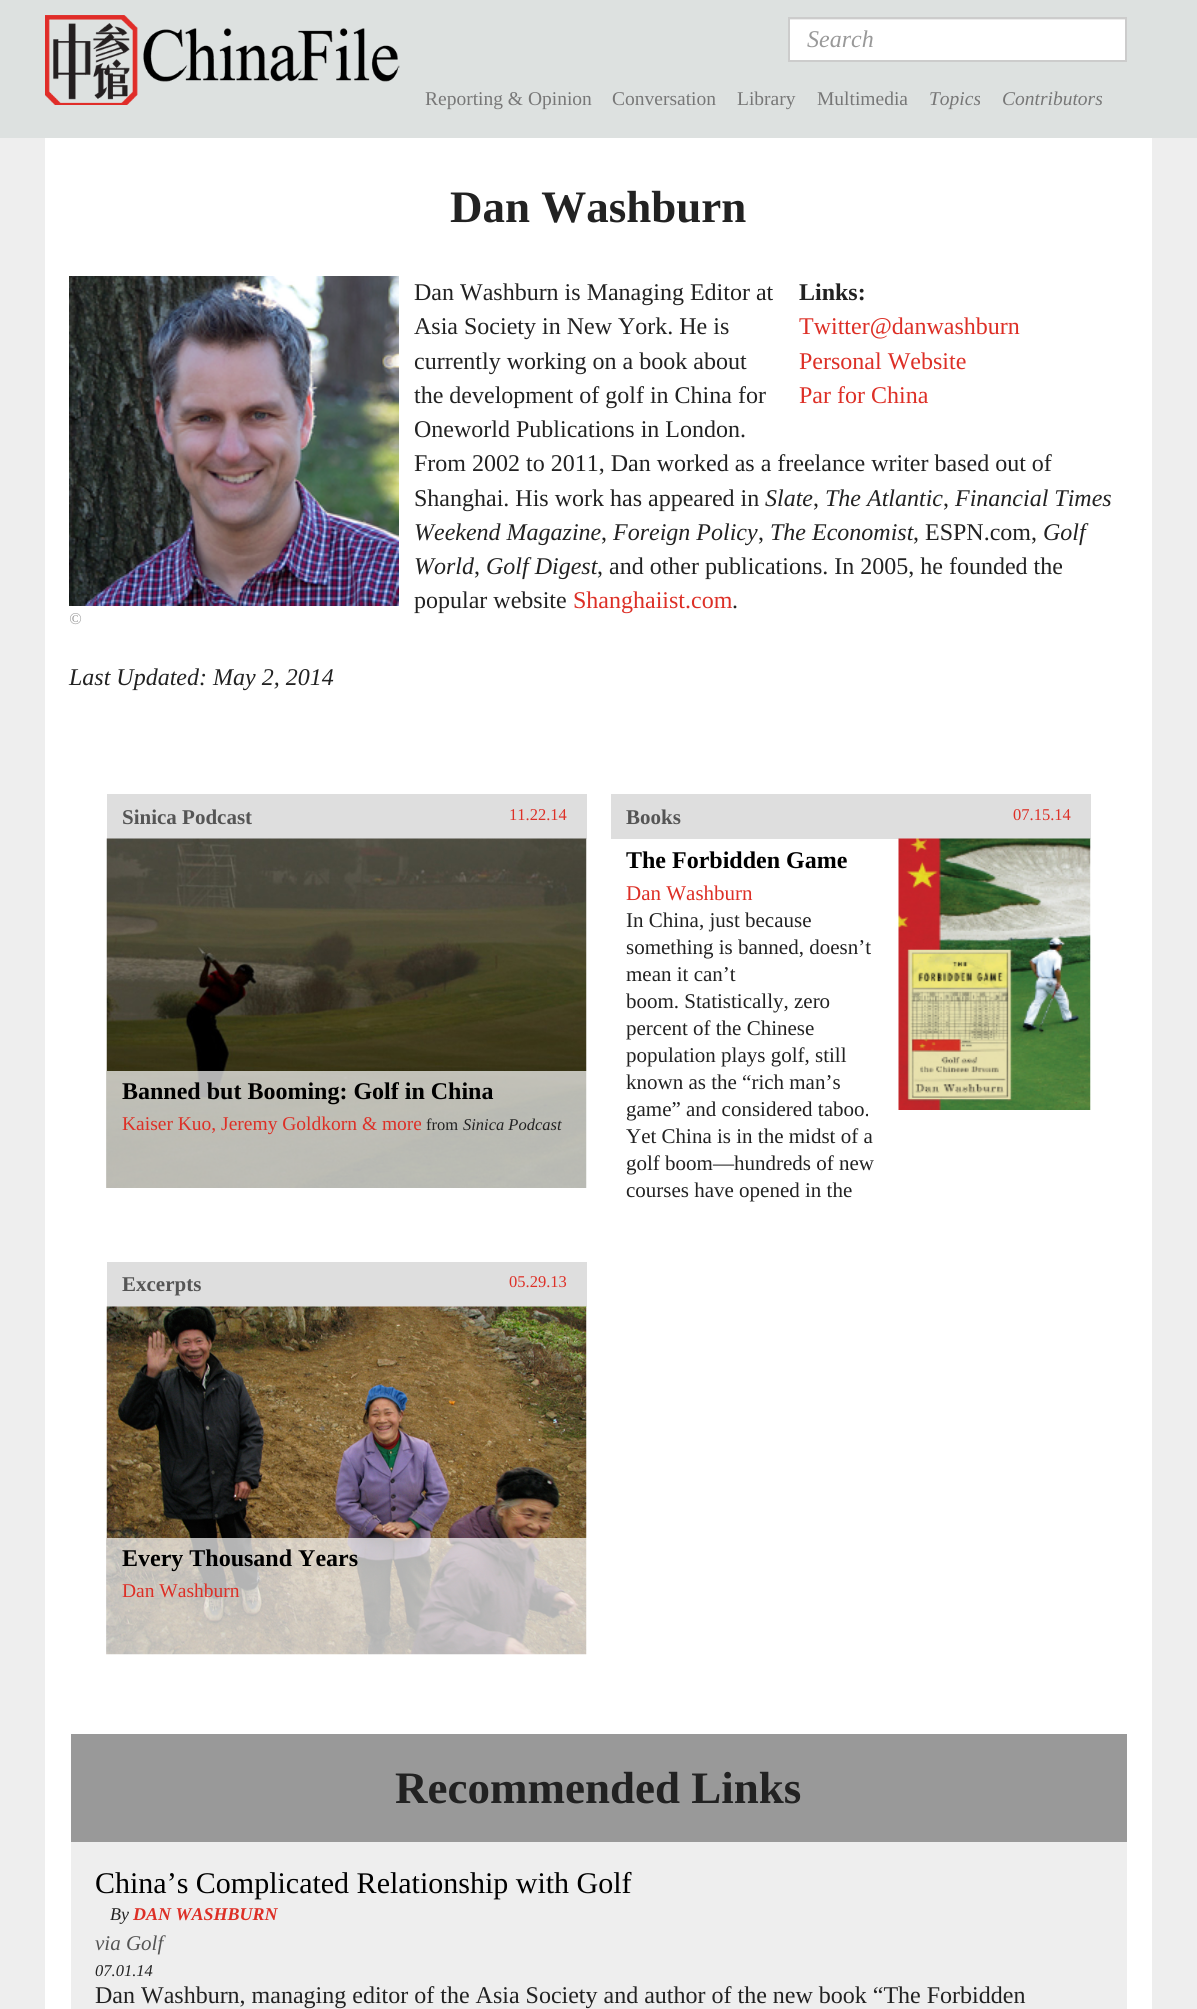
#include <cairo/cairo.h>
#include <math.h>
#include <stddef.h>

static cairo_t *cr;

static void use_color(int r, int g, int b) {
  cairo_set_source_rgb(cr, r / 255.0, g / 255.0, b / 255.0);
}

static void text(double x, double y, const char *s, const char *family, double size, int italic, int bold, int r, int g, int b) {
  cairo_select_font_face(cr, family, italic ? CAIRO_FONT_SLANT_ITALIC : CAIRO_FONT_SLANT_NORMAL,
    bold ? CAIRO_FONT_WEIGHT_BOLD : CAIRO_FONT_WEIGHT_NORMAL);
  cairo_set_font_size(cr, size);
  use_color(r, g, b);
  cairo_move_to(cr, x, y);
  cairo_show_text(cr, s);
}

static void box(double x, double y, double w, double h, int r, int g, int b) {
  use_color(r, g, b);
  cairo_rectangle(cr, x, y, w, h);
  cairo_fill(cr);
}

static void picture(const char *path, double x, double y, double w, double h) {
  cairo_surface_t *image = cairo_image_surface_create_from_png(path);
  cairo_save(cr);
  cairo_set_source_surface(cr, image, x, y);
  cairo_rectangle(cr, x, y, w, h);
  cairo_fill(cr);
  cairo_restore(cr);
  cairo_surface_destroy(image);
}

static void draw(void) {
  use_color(238, 238, 238);
  cairo_paint(cr);
  box(0, 0, 1197, 138, 221, 225, 224);
  picture("img_01.png", 45, 15, 355, 90);
  box(790, 20, 335, 40, 255, 255, 255);
  box(789, 19, 336, 1, 236, 236, 236);
  cairo_rectangle(cr, 789, 18, 337, 43);
  use_color(204, 204, 204);
  cairo_stroke(cr);
  box(45, 138, 1107, 1871, 255, 255, 255);
  picture("img_02.png", 69, 276, 330, 330);
  box(107, 794, 480, 45, 222, 222, 222);
  picture("img_03.png", 106, 838, 481, 350);
  cairo_set_source_rgba(cr, 1, 1, 1, 0.7);
  cairo_rectangle(cr, 107, 1071, 480, 117);
  cairo_fill(cr);
  box(611, 794, 480, 45, 222, 222, 222);
  picture("img_04.png", 898, 838, 193, 272);
  box(107, 1262, 480, 45, 222, 222, 222);
  picture("img_05.png", 106, 1306, 481, 349);
  cairo_set_source_rgba(cr, 1, 1, 1, 0.7);
  cairo_rectangle(cr, 107, 1538, 480, 117);
  cairo_fill(cr);
  box(71, 1842, 1056, 167, 238, 238, 238);
  box(71, 1734, 1056, 108, 153, 153, 153);
  text(807, 47, "Search", "Liberation Serif", 24, 1, 0, 153, 153, 153);
  text(425, 105, "Reporting & Opinion", "Liberation Serif", 19.5, 0, 0, 119, 119, 119);
  text(612, 105, "Conversation", "Liberation Serif", 19.5, 0, 0, 119, 119, 119);
  text(737, 105, "Library", "Liberation Serif", 19.5, 0, 0, 119, 119, 119);
  text(817, 105, "Multimedia", "Liberation Serif", 19.5, 0, 0, 119, 119, 119);
  text(929, 105, "Topics", "Liberation Serif", 19.5, 1, 0, 119, 119, 119);
  text(1002, 105, "Contributors", "Liberation Serif", 19.5, 1, 0, 119, 119, 119);
  text(450, 222, "Dan Washburn", "Liberation Serif", 45, 0, 1, 34, 34, 34);
  text(414, 300, "Dan Washburn is Managing Editor at", "Liberation Serif", 24, 0, 0, 34, 34, 34);
  text(414, 334, "Asia Society in New York. He is", "Liberation Serif", 24, 0, 0, 34, 34, 34);
  text(414, 369, "currently working on a book about", "Liberation Serif", 24, 0, 0, 34, 34, 34);
  text(414, 403, "the development of golf in China for", "Liberation Serif", 24, 0, 0, 34, 34, 34);
  text(414, 437, "Oneworld Publications in London.", "Liberation Serif", 24, 0, 0, 34, 34, 34);
  text(414, 471, "From 2002 to 2011, Dan worked as a freelance writer based out of", "Liberation Serif", 24, 0, 0, 34, 34, 34);
  text(414, 506, "Shanghai. His work has appeared in", "Liberation Serif", 24, 0, 0, 34, 34, 34);
  text(765, 506, "Slate", "Liberation Serif", 24, 1, 0, 34, 34, 34);
  text(813, 506, ",", "Liberation Serif", 24, 0, 0, 34, 34, 34);
  text(825, 506, "The Atlantic", "Liberation Serif", 24, 1, 0, 34, 34, 34);
  text(943, 506, ",", "Liberation Serif", 24, 0, 0, 34, 34, 34);
  text(955, 506, "Financial Times", "Liberation Serif", 24, 1, 0, 34, 34, 34);
  text(414, 540, "Weekend Magazine", "Liberation Serif", 24, 1, 0, 34, 34, 34);
  text(601, 540, ",", "Liberation Serif", 24, 0, 0, 34, 34, 34);
  text(613, 540, "Foreign Policy", "Liberation Serif", 24, 1, 0, 34, 34, 34);
  text(758, 540, ",", "Liberation Serif", 24, 0, 0, 34, 34, 34);
  text(770, 540, "The Economist", "Liberation Serif", 24, 1, 0, 34, 34, 34);
  text(913, 540, ", ESPN.com,", "Liberation Serif", 24, 0, 0, 34, 34, 34);
  text(1043, 540, "Golf", "Liberation Serif", 24, 1, 0, 34, 34, 34);
  text(414, 574, "World", "Liberation Serif", 24, 1, 0, 34, 34, 34);
  text(474, 574, ",", "Liberation Serif", 24, 0, 0, 34, 34, 34);
  text(486, 574, "Golf Digest", "Liberation Serif", 24, 1, 0, 34, 34, 34);
  text(597, 574, ", and other publications. In 2005, he founded the", "Liberation Serif", 24, 0, 0, 34, 34, 34);
  text(414, 608, "popular website", "Liberation Serif", 24, 0, 0, 34, 34, 34);
  text(573, 608, "Shanghaiist.com", "Liberation Serif", 24, 0, 0, 221, 47, 38);
  text(732, 608, ".", "Liberation Serif", 24, 0, 0, 34, 34, 34);
  text(799, 300, "Links:", "Liberation Serif", 24, 0, 1, 34, 34, 34);
  text(799, 334, "Twitter@danwashburn", "Liberation Serif", 24, 0, 0, 221, 47, 38);
  text(799, 369, "Personal Website", "Liberation Serif", 24, 0, 0, 221, 47, 38);
  text(799, 403, "Par for China", "Liberation Serif", 24, 0, 0, 221, 47, 38);
  text(69, 624, "©", "Liberation Serif", 16.5, 1, 0, 153, 153, 153);
  text(69, 685, "Last Updated: May 2, 2014", "Liberation Serif", 24, 1, 0, 34, 34, 34);
  text(122, 824, "Sinica Podcast", "Liberation Serif", 21, 0, 1, 85, 85, 85);
  text(509, 820, "11.22.14", "Liberation Serif", 16.5, 0, 0, 221, 47, 38);
  text(122, 1099, "Banned but Booming: Golf in China", "Liberation Serif", 24, 0, 1, 0, 0, 0);
  text(122, 1130, "Kaiser Kuo, Jeremy Goldkorn & more", "Liberation Serif", 19.5, 0, 0, 221, 47, 38);
  text(426, 1130, "from", "Liberation Serif", 16.5, 0, 0, 34, 34, 34);
  text(463, 1130, "Sinica Podcast", "Liberation Serif", 16.5, 1, 0, 34, 34, 34);
  text(626, 824, "Books", "Liberation Serif", 21, 0, 1, 85, 85, 85);
  text(1013, 820, "07.15.14", "Liberation Serif", 16.5, 0, 0, 221, 47, 38);
  text(626, 868, "The Forbidden Game", "Liberation Serif", 24, 0, 1, 0, 0, 0);
  text(626, 900, "Dan Washburn", "Liberation Serif", 21, 0, 0, 221, 47, 38);
  text(626, 927, "In China, just because", "Liberation Serif", 21, 0, 0, 34, 34, 34);
  text(626, 954, "something is banned, doesn’t", "Liberation Serif", 21, 0, 0, 34, 34, 34);
  text(626, 981, "mean it can’t", "Liberation Serif", 21, 0, 0, 34, 34, 34);
  text(626, 1008, "boom. Statistically, zero", "Liberation Serif", 21, 0, 0, 34, 34, 34);
  text(626, 1035, "percent of the Chinese", "Liberation Serif", 21, 0, 0, 34, 34, 34);
  text(626, 1062, "population plays golf, still", "Liberation Serif", 21, 0, 0, 34, 34, 34);
  text(626, 1089, "known as the “rich man’s", "Liberation Serif", 21, 0, 0, 34, 34, 34);
  text(626, 1116, "game” and considered taboo.", "Liberation Serif", 21, 0, 0, 34, 34, 34);
  text(626, 1143, "Yet China is in the midst of a", "Liberation Serif", 21, 0, 0, 34, 34, 34);
  text(626, 1170, "golf boom—hundreds of new", "Liberation Serif", 21, 0, 0, 34, 34, 34);
  text(626, 1197, "courses have opened in the", "Liberation Serif", 21, 0, 0, 34, 34, 34);
  text(122, 1291, "Excerpts", "Liberation Serif", 21, 0, 1, 85, 85, 85);
  text(509, 1287, "05.29.13", "Liberation Serif", 16.5, 0, 0, 221, 47, 38);
  text(122, 1566, "Every Thousand Years", "Liberation Serif", 24, 0, 1, 0, 0, 0);
  text(122, 1597, "Dan Washburn", "Liberation Serif", 19.5, 0, 0, 221, 47, 38);
  text(395, 1803, "Recommended Links", "Liberation Serif", 45, 0, 1, 34, 34, 34);
  text(95, 1893, "China’s Complicated Relationship with Golf", "Liberation Serif", 30, 0, 0, 0, 0, 0);
  text(110, 1920, "By", "Liberation Serif", 18, 1, 0, 34, 34, 34);
  text(133, 1920, "DAN WASHBURN", "Liberation Serif", 18, 1, 1, 221, 47, 38);
  text(95, 1950, "via Golf", "Liberation Serif", 21, 1, 0, 85, 85, 85);
  text(95, 1976, "07.01.14", "Liberation Serif", 16.5, 1, 0, 34, 34, 34);
  text(95, 2003, "Dan Washburn, managing editor of the Asia Society and author of the new book “The Forbidden", "Liberation Serif", 24, 0, 0, 34, 34, 34);
}

int main(void) {
  cairo_surface_t *surface = cairo_image_surface_create(CAIRO_FORMAT_RGB24, 1197, 2009);
  cr = cairo_create(surface);
  cairo_font_options_t *options = cairo_font_options_create();
  cairo_font_options_set_hint_metrics(options, CAIRO_HINT_METRICS_OFF);
  cairo_font_options_set_hint_style(options, CAIRO_HINT_STYLE_NONE);
  cairo_set_font_options(cr, options);
  cairo_set_miter_limit(cr, 4);
  draw();
  cairo_surface_write_to_png(surface, "out.png");
  cairo_font_options_destroy(options);
  cairo_destroy(cr);
  cairo_surface_destroy(surface);
  return 0;
}
